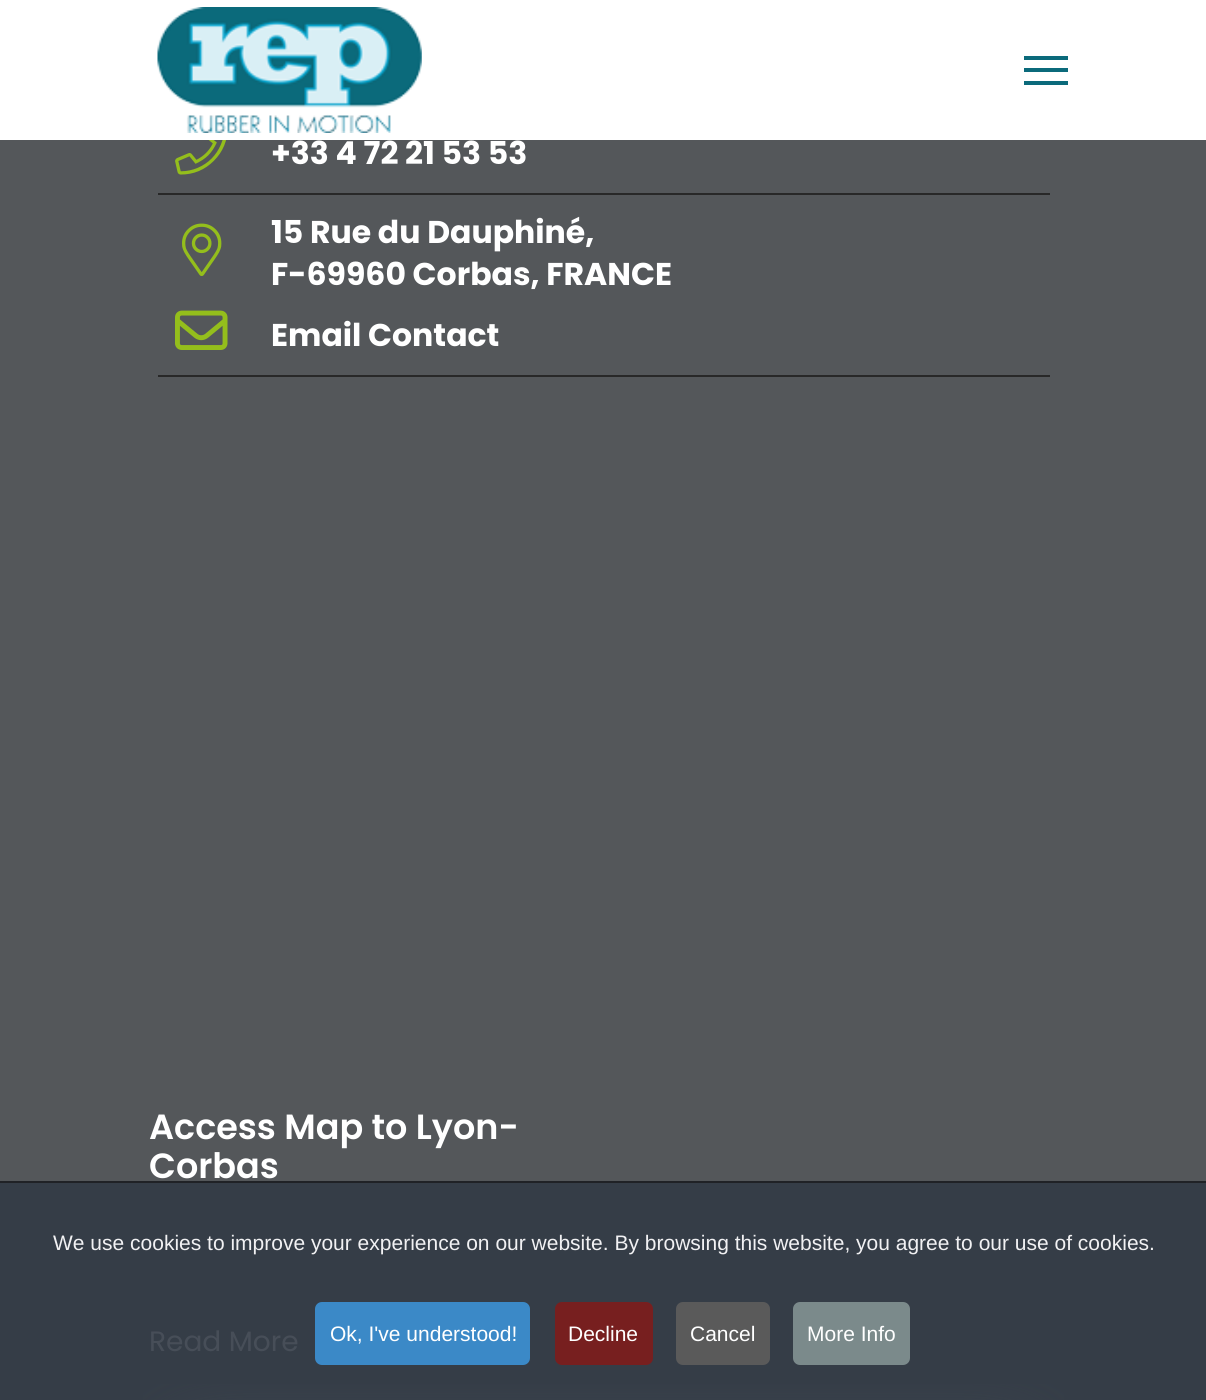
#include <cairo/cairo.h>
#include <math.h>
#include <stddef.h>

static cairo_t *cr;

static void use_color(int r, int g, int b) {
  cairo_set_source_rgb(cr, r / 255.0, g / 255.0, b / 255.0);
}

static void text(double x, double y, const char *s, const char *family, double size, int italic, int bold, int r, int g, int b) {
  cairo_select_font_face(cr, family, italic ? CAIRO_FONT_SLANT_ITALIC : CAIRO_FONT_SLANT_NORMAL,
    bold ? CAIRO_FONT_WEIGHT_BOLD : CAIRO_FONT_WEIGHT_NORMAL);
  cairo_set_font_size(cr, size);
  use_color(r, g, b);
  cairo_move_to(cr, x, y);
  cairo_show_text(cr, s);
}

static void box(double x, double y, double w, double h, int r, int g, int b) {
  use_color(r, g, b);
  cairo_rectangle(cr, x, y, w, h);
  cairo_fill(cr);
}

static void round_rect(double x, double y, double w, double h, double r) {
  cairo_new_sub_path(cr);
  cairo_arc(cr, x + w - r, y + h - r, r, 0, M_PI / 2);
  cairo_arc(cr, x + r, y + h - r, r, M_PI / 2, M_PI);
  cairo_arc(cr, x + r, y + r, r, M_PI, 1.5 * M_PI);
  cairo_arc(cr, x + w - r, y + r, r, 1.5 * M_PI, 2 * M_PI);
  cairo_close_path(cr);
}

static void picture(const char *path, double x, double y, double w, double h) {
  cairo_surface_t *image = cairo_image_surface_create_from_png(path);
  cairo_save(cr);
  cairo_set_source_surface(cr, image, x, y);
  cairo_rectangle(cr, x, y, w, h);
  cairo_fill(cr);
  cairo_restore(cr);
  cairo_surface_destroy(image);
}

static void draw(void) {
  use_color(84, 87, 90);
  cairo_paint(cr);
  box(0, 0, 1206, 140, 255, 255, 255);
  picture("img_01.png", 157, 7, 265, 126);
  box(1024, 56, 44, 4, 11, 106, 123);
  box(1024, 68, 44, 4, 11, 106, 123);
  box(1024, 81, 44, 4, 11, 106, 123);
  box(0, 1183, 1206, 217, 53, 61, 71);
  box(158, 193, 892, 2, 40, 40, 40);
  picture("img_02.png", 175, 140, 51, 35);
  picture("img_03.png", 182, 223, 40, 53);
  box(158, 375, 892, 2, 40, 40, 40);
  picture("img_04.png", 175, 310, 53, 40);
  picture("img_05.png", 143, 1384, 921, 16);
  box(0, 1181, 1206, 2, 32, 34, 38);
  use_color(59, 137, 199);
  round_rect(315, 1302, 215, 63, 7);
  cairo_fill(cr);
  use_color(119, 31, 31);
  round_rect(555, 1302, 98, 63, 7);
  cairo_fill(cr);
  use_color(90, 90, 90);
  round_rect(676, 1302, 94, 63, 7);
  cairo_fill(cr);
  use_color(123, 138, 139);
  round_rect(793, 1302, 117, 63, 7);
  cairo_fill(cr);
  text(271, 164, "+33 4 72 21 53 53", "Poppins", 31.5, 0, 1, 255, 255, 255);
  text(271, 243, "15 Rue du Dauphiné,", "Poppins", 31.5, 0, 1, 255, 255, 255);
  text(271, 285, "F-69960 Corbas, FRANCE", "Poppins", 31.5, 0, 1, 255, 255, 255);
  text(271, 346, "Email Contact", "Poppins", 31.5, 0, 1, 255, 255, 255);
  text(149, 1139, "Access Map to Lyon-", "Poppins SemiBold", 35, 0, 0, 255, 255, 255);
  text(149, 1178, "Corbas", "Poppins SemiBold", 35, 0, 0, 255, 255, 255);
  text(149, 1351, "Read More", "Poppins", 28, 0, 0, 71, 78, 88);
  text(53, 1250, "We use cookies to improve your experience on our website. By browsing this website, you agree to our use of cookies.", "Liberation Sans", 21, 0, 0, 241, 241, 243);
  text(330, 1341, "Ok, I've understood!", "Liberation Sans", 21, 0, 0, 255, 255, 255);
  text(568, 1341, "Decline", "Liberation Sans", 21, 0, 0, 255, 255, 255);
  text(690, 1341, "Cancel", "Liberation Sans", 21, 0, 0, 255, 255, 255);
  text(807, 1341, "More Info", "Liberation Sans", 21, 0, 0, 255, 255, 255);
}

int main(void) {
  cairo_surface_t *surface = cairo_image_surface_create(CAIRO_FORMAT_RGB24, 1206, 1400);
  cr = cairo_create(surface);
  cairo_font_options_t *options = cairo_font_options_create();
  cairo_font_options_set_hint_metrics(options, CAIRO_HINT_METRICS_OFF);
  cairo_font_options_set_hint_style(options, CAIRO_HINT_STYLE_NONE);
  cairo_set_font_options(cr, options);
  cairo_set_miter_limit(cr, 4);
  draw();
  cairo_surface_write_to_png(surface, "out.png");
  cairo_font_options_destroy(options);
  cairo_destroy(cr);
  cairo_surface_destroy(surface);
  return 0;
}
